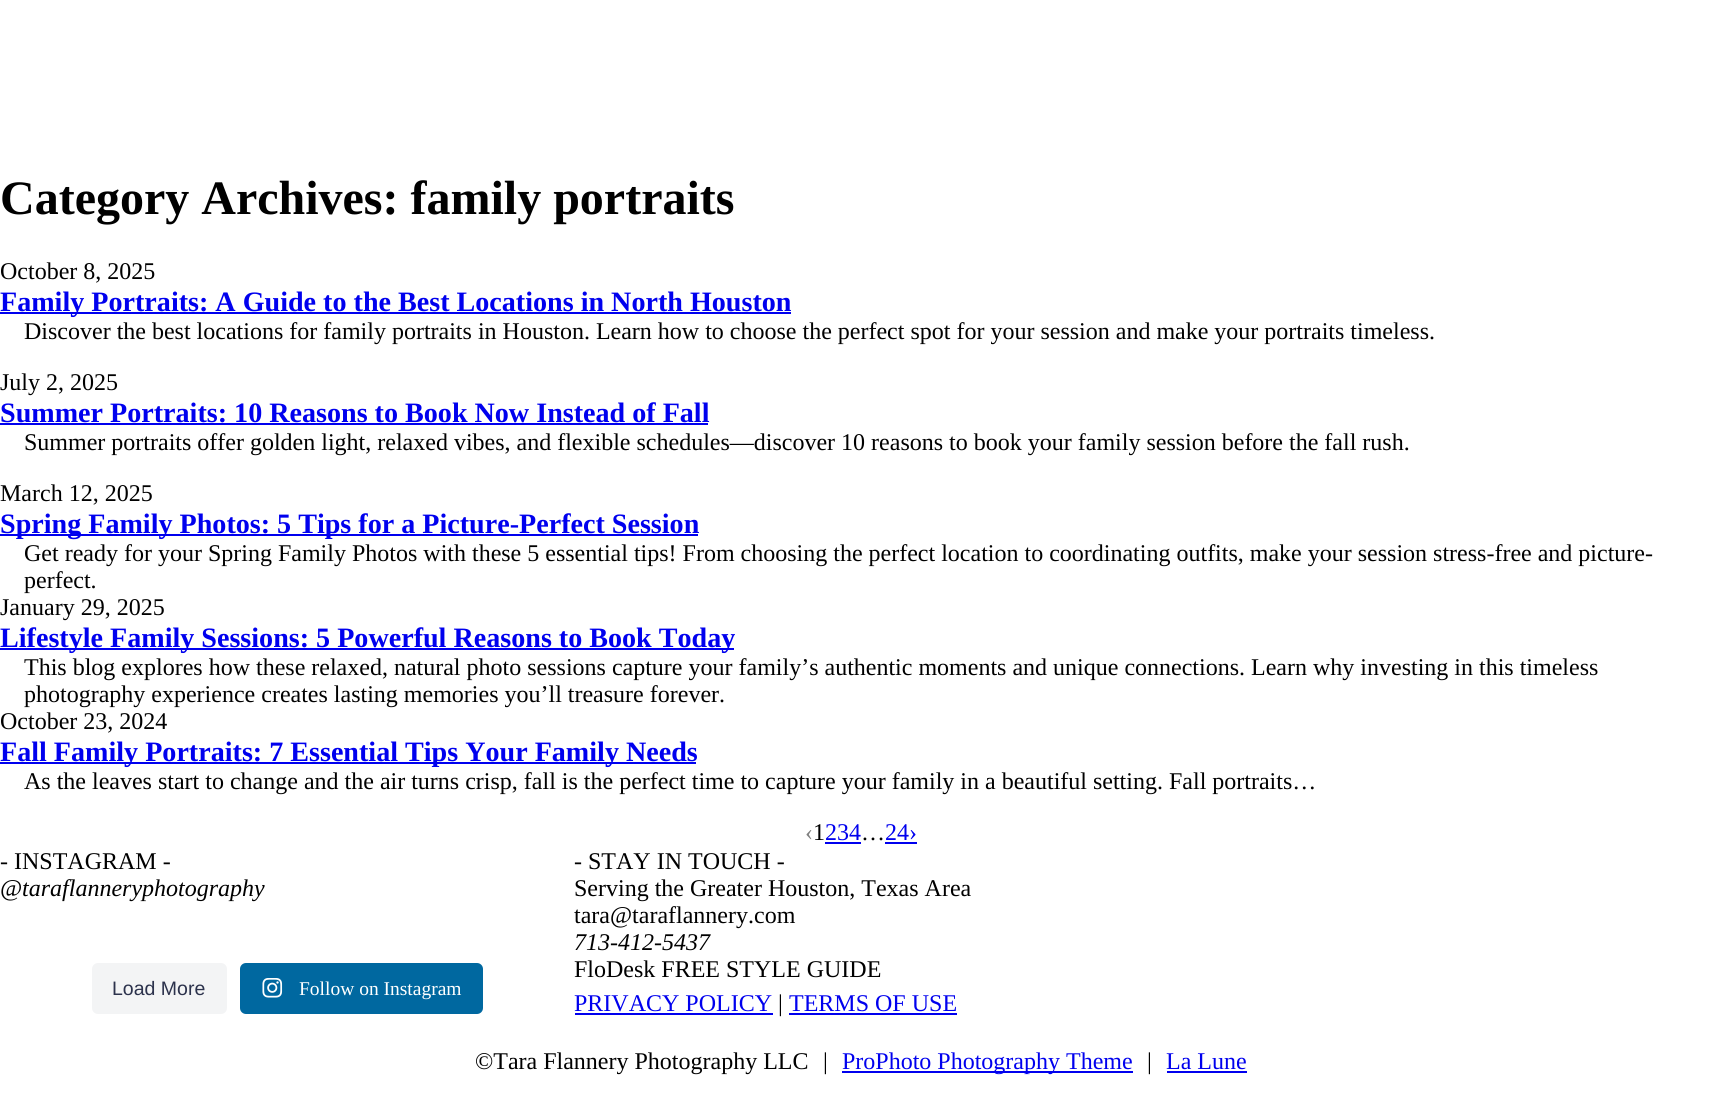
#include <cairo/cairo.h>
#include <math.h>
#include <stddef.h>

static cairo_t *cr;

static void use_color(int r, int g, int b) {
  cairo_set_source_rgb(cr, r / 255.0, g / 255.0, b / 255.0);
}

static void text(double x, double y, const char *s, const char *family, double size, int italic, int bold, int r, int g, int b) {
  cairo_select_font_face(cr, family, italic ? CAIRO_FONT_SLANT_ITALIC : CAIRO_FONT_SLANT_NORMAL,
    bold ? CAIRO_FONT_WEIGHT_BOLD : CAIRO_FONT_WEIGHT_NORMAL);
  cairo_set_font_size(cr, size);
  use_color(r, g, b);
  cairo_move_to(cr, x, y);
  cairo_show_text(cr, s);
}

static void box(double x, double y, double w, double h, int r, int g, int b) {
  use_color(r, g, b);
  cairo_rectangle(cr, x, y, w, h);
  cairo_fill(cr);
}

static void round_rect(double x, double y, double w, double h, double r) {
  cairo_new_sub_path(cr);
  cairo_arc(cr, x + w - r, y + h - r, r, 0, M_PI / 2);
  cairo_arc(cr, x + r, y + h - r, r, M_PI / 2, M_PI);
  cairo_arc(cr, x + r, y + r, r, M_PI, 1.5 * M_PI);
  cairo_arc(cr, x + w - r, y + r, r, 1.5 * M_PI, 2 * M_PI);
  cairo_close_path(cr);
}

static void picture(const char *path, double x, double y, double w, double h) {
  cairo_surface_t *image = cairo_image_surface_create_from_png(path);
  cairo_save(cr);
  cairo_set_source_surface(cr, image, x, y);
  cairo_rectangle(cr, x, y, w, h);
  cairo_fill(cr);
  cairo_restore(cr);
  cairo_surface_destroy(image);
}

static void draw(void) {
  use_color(255, 255, 255);
  cairo_paint(cr);
  box(0, 312, 791, 2, 0, 0, 238);
  box(0, 423, 708, 2, 0, 0, 238);
  box(0, 534, 698, 2, 0, 0, 238);
  box(0, 648, 734, 2, 0, 0, 238);
  box(0, 762, 696, 2, 0, 0, 238);
  box(825, 842, 36, 2, 0, 0, 238);
  box(885, 842, 32, 2, 0, 0, 238);
  use_color(243, 244, 245);
  round_rect(92, 963, 135, 51, 6);
  cairo_fill(cr);
  use_color(0, 104, 160);
  round_rect(240, 963, 243, 51, 6);
  cairo_fill(cr);
  picture("img_01.png", 262, 978, 21, 20);
  box(575, 1013, 198, 2, 0, 0, 238);
  box(789, 1013, 168, 2, 0, 0, 238);
  box(842, 1071, 291, 2, 0, 0, 238);
  box(1167, 1071, 80, 2, 0, 0, 238);
  text(0, 214, "Category Archives: family portraits", "Liberation Serif", 48, 0, 1, 0, 0, 0);
  text(0, 279, "October 8, 2025", "Liberation Serif", 24, 0, 0, 0, 0, 0);
  text(0, 311, "Family Portraits: A Guide to the Best Locations in North Houston", "Liberation Serif", 28.1, 0, 1, 0, 0, 238);
  text(24, 339, "Discover the best locations for family portraits in Houston. Learn how to choose the perfect spot for your session and make your portraits timeless.", "Liberation Serif", 24, 0, 0, 0, 0, 0);
  text(0, 390, "July 2, 2025", "Liberation Serif", 24, 0, 0, 0, 0, 0);
  text(0, 422, "Summer Portraits: 10 Reasons to Book Now Instead of Fall", "Liberation Serif", 28.1, 0, 1, 0, 0, 238);
  text(24, 450, "Summer portraits offer golden light, relaxed vibes, and flexible schedules—discover 10 reasons to book your family session before the fall rush.", "Liberation Serif", 24, 0, 0, 0, 0, 0);
  text(0, 501, "March 12, 2025", "Liberation Serif", 24, 0, 0, 0, 0, 0);
  text(0, 533, "Spring Family Photos: 5 Tips for a Picture-Perfect Session", "Liberation Serif", 28.1, 0, 1, 0, 0, 238);
  text(24, 561, "Get ready for your Spring Family Photos with these 5 essential tips! From choosing the perfect location to coordinating outfits, make your session stress-free and picture-", "Liberation Serif", 24, 0, 0, 0, 0, 0);
  text(24, 588, "perfect.", "Liberation Serif", 24, 0, 0, 0, 0, 0);
  text(0, 615, "January 29, 2025", "Liberation Serif", 24, 0, 0, 0, 0, 0);
  text(0, 647, "Lifestyle Family Sessions: 5 Powerful Reasons to Book Today", "Liberation Serif", 28.1, 0, 1, 0, 0, 238);
  text(24, 675, "This blog explores how these relaxed, natural photo sessions capture your family’s authentic moments and unique connections. Learn why investing in this timeless", "Liberation Serif", 24, 0, 0, 0, 0, 0);
  text(24, 702, "photography experience creates lasting memories you’ll treasure forever.", "Liberation Serif", 24, 0, 0, 0, 0, 0);
  text(0, 729, "October 23, 2024", "Liberation Serif", 24, 0, 0, 0, 0, 0);
  text(0, 761, "Fall Family Portraits: 7 Essential Tips Your Family Needs", "Liberation Serif", 28.1, 0, 1, 0, 0, 238);
  text(24, 789, "As the leaves start to change and the air turns crisp, fall is the perfect time to capture your family in a beautiful setting. Fall portraits…", "Liberation Serif", 24, 0, 0, 0, 0, 0);
  text(805, 840, "‹", "Liberation Serif", 24, 0, 0, 128, 128, 128);
  text(813, 840, "1", "Liberation Serif", 24, 0, 0, 0, 0, 0);
  text(825, 840, "234", "Liberation Serif", 24, 0, 0, 0, 0, 238);
  text(861, 840, "…", "Liberation Serif", 24, 0, 0, 0, 0, 0);
  text(885, 840, "24›", "Liberation Serif", 24, 0, 0, 0, 0, 238);
  text(0, 869, "- INSTAGRAM -", "Liberation Serif", 24, 0, 0, 0, 0, 0);
  text(0, 896, "@taraflanneryphotography", "Liberation Serif", 24, 1, 0, 0, 0, 0);
  text(112, 995, "Load More", "Liberation Sans", 19.5, 0, 0, 44, 50, 76);
  text(299, 995, "Follow on Instagram", "Liberation Serif", 19.5, 0, 0, 255, 255, 255);
  text(574, 869, "- STAY IN TOUCH -", "Liberation Serif", 24, 0, 0, 0, 0, 0);
  text(574, 896, "Serving the Greater Houston, Texas Area", "Liberation Serif", 24, 0, 0, 0, 0, 0);
  text(574, 923, "tara@taraflannery.com", "Liberation Serif", 24, 0, 0, 0, 0, 0);
  text(574, 950, "713-412-5437", "Liberation Serif", 24, 1, 0, 0, 0, 0);
  text(574, 977, "FloDesk FREE STYLE GUIDE", "Liberation Serif", 24, 0, 0, 0, 0, 0);
  text(574, 1011, "PRIVACY POLICY", "Liberation Serif", 24, 0, 0, 0, 0, 238);
  text(778, 1011, "|", "Liberation Serif", 24, 0, 0, 0, 0, 0);
  text(789, 1011, "TERMS OF USE", "Liberation Serif", 24, 0, 0, 0, 0, 238);
  text(475, 1069, "©Tara Flannery Photography LLC", "Liberation Serif", 24, 0, 0, 0, 0, 0);
  text(823, 1069, "|", "Liberation Serif", 24, 0, 0, 0, 0, 0);
  text(842, 1069, "ProPhoto Photography Theme", "Liberation Serif", 24, 0, 0, 0, 0, 238);
  text(1147, 1069, "|", "Liberation Serif", 24, 0, 0, 0, 0, 0);
  text(1166, 1069, "La Lune", "Liberation Serif", 24, 0, 0, 0, 0, 238);
}

int main(void) {
  cairo_surface_t *surface = cairo_image_surface_create(CAIRO_FORMAT_RGB24, 1722, 1114);
  cr = cairo_create(surface);
  cairo_font_options_t *options = cairo_font_options_create();
  cairo_font_options_set_hint_metrics(options, CAIRO_HINT_METRICS_OFF);
  cairo_font_options_set_hint_style(options, CAIRO_HINT_STYLE_NONE);
  cairo_set_font_options(cr, options);
  cairo_set_miter_limit(cr, 4);
  draw();
  cairo_surface_write_to_png(surface, "out.png");
  cairo_font_options_destroy(options);
  cairo_destroy(cr);
  cairo_surface_destroy(surface);
  return 0;
}
